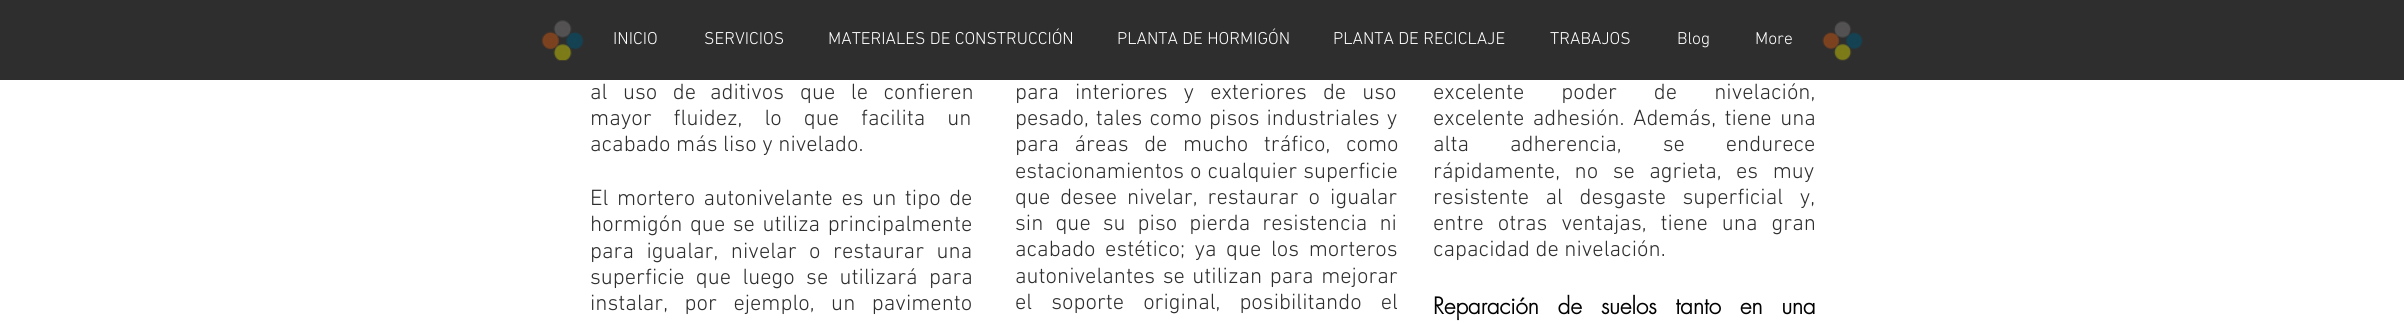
#include <cairo/cairo.h>
#include <math.h>
#include <stddef.h>

static cairo_t *cr;

static void use_color(int r, int g, int b) {
  cairo_set_source_rgb(cr, r / 255.0, g / 255.0, b / 255.0);
}

static void text(double x, double y, const char *s, const char *family, double size, int italic, int bold, int r, int g, int b) {
  cairo_select_font_face(cr, family, italic ? CAIRO_FONT_SLANT_ITALIC : CAIRO_FONT_SLANT_NORMAL,
    bold ? CAIRO_FONT_WEIGHT_BOLD : CAIRO_FONT_WEIGHT_NORMAL);
  cairo_set_font_size(cr, size);
  use_color(r, g, b);
  cairo_move_to(cr, x, y);
  cairo_show_text(cr, s);
}

static void spaced_text(double x, double y, const char *s, double letter, double word) {
  cairo_move_to(cr, x, y);
  while (*s) {
    char ch[5] = {0};
    int n = 0;
    do ch[n++] = *s++; while ((*s & 0xC0) == 0x80);
    cairo_show_text(cr, ch);
    cairo_rel_move_to(cr, letter + word * (*ch == ' '), 0);
  }
}

static void box(double x, double y, double w, double h, int r, int g, int b) {
  use_color(r, g, b);
  cairo_rectangle(cr, x, y, w, h);
  cairo_fill(cr);
}

static void picture(const char *path, double x, double y, double w, double h) {
  cairo_surface_t *image = cairo_image_surface_create_from_png(path);
  cairo_save(cr);
  cairo_set_source_surface(cr, image, x, y);
  cairo_rectangle(cr, x, y, w, h);
  cairo_fill(cr);
  cairo_restore(cr);
  cairo_surface_destroy(image);
}

static void draw(void) {
  use_color(255, 255, 255);
  cairo_paint(cr);
  box(0, 0, 2404, 80, 47, 46, 46);
  picture("img_01.png", 541, 20, 43, 41);
  picture("img_02.png", 1822, 21, 41, 40);
  text(613, 44, "INICIO", "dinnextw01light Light", 17.5, 0, 0, 255, 255, 255);
  text(704, 44, "SERVICIOS", "dinnextw01light Light", 17.5, 0, 0, 255, 255, 255);
  text(828, 44, "MATERIALES DE CONSTRUCCIÓN", "dinnextw01light Light", 17.5, 0, 0, 255, 255, 255);
  text(1117, 44, "PLANTA DE HORMIGÓN", "dinnextw01light Light", 17.5, 0, 0, 255, 255, 255);
  text(1333, 44, "PLANTA DE RECICLAJE", "dinnextw01light Light", 17.5, 0, 0, 255, 255, 255);
  text(1550, 44, "TRABAJOS", "dinnextw01light Light", 17.5, 0, 0, 255, 255, 255);
  text(1677, 44, "Blog", "dinnextw01light Light", 17.5, 0, 0, 255, 255, 255);
  text(1755, 44, "More", "dinnextw01light Light", 17.5, 0, 0, 255, 255, 255);
  cairo_set_font_size(cr, 22.5);
  use_color(47, 46, 46);
  spaced_text(590, 99, "al uso de", 0, 10);
  text(710, 99, "aditivos", "dinnextw01light Light", 22.5, 0, 0, 47, 46, 46);
  spaced_text(800, 99, "que le confieren", 0, 10);
  spaced_text(590, 125, "mayor fluidez, lo que facilita un", 0, 16.5);
  text(590, 151, "acabado más liso y nivelado.", "dinnextw01light Light", 22.5, 0, 0, 47, 46, 46);
  spaced_text(590, 205, "El mortero autonivelante es un tipo de", 0, 3);
  spaced_text(590, 231, "hormigón que se utiliza principalmente", 0, 2);
  spaced_text(590, 258, "para igualar, nivelar o restaurar una", 0, 7);
  spaced_text(590, 284, "superficie que luego se utilizará para", 0, 5.75);
  spaced_text(590, 310, "instalar, por ejemplo, un pavimento", 0, 11);
  spaced_text(1015, 99, "para interiores y exteriores de uso", 0, 10.5);
  spaced_text(1015, 125, "pesado, tales como pisos industriales y", 0, 1.5);
  spaced_text(1015, 151, "para áreas de mucho tráfico, como", 0, 10);
  spaced_text(1015, 178, "estacionamientos o cualquier superficie", 0, 0.5);
  spaced_text(1015, 204, "que desee nivelar, restaurar o igualar", 0, 4.5);
  spaced_text(1015, 230, "sin que su piso pierda resistencia ni", 0, 6.5);
  spaced_text(1015, 256, "acabado estético; ya que los morteros", 0, 4);
  spaced_text(1015, 283, "autonivelantes se utilizan para mejorar", 0, 2);
  spaced_text(1015, 309, "el soporte original, posibilitando el", 0, 13.5);
  spaced_text(1433, 99, "excelente poder de nivelación,", 0, 31.5);
  spaced_text(1433, 125, "excelente adhesión. Además, tiene una", 0, 3);
  spaced_text(1433, 151, "alta adherencia, se endurece", 0, 35.5);
  spaced_text(1433, 178, "rápidamente, no se agrieta, es muy", 0, 9);
  spaced_text(1433, 204, "resistente al desgaste superficial y,", 0, 11);
  spaced_text(1433, 230, "entre otras ventajas, tiene una gran", 0, 8.5);
  text(1433, 256, "capacidad de nivelación.", "dinnextw01light Light", 22.5, 0, 0, 47, 46, 46);
  cairo_select_font_face(cr, "futura", CAIRO_FONT_SLANT_NORMAL, CAIRO_FONT_WEIGHT_BOLD);
  use_color(0, 0, 0);
  spaced_text(1433, 314, "Reparación de suelos tanto en una", 0, 12);
}

int main(void) {
  cairo_surface_t *surface = cairo_image_surface_create(CAIRO_FORMAT_RGB24, 2404, 324);
  cr = cairo_create(surface);
  cairo_font_options_t *options = cairo_font_options_create();
  cairo_font_options_set_hint_metrics(options, CAIRO_HINT_METRICS_OFF);
  cairo_font_options_set_hint_style(options, CAIRO_HINT_STYLE_NONE);
  cairo_set_font_options(cr, options);
  cairo_set_miter_limit(cr, 4);
  draw();
  cairo_surface_write_to_png(surface, "out.png");
  cairo_font_options_destroy(options);
  cairo_destroy(cr);
  cairo_surface_destroy(surface);
  return 0;
}
